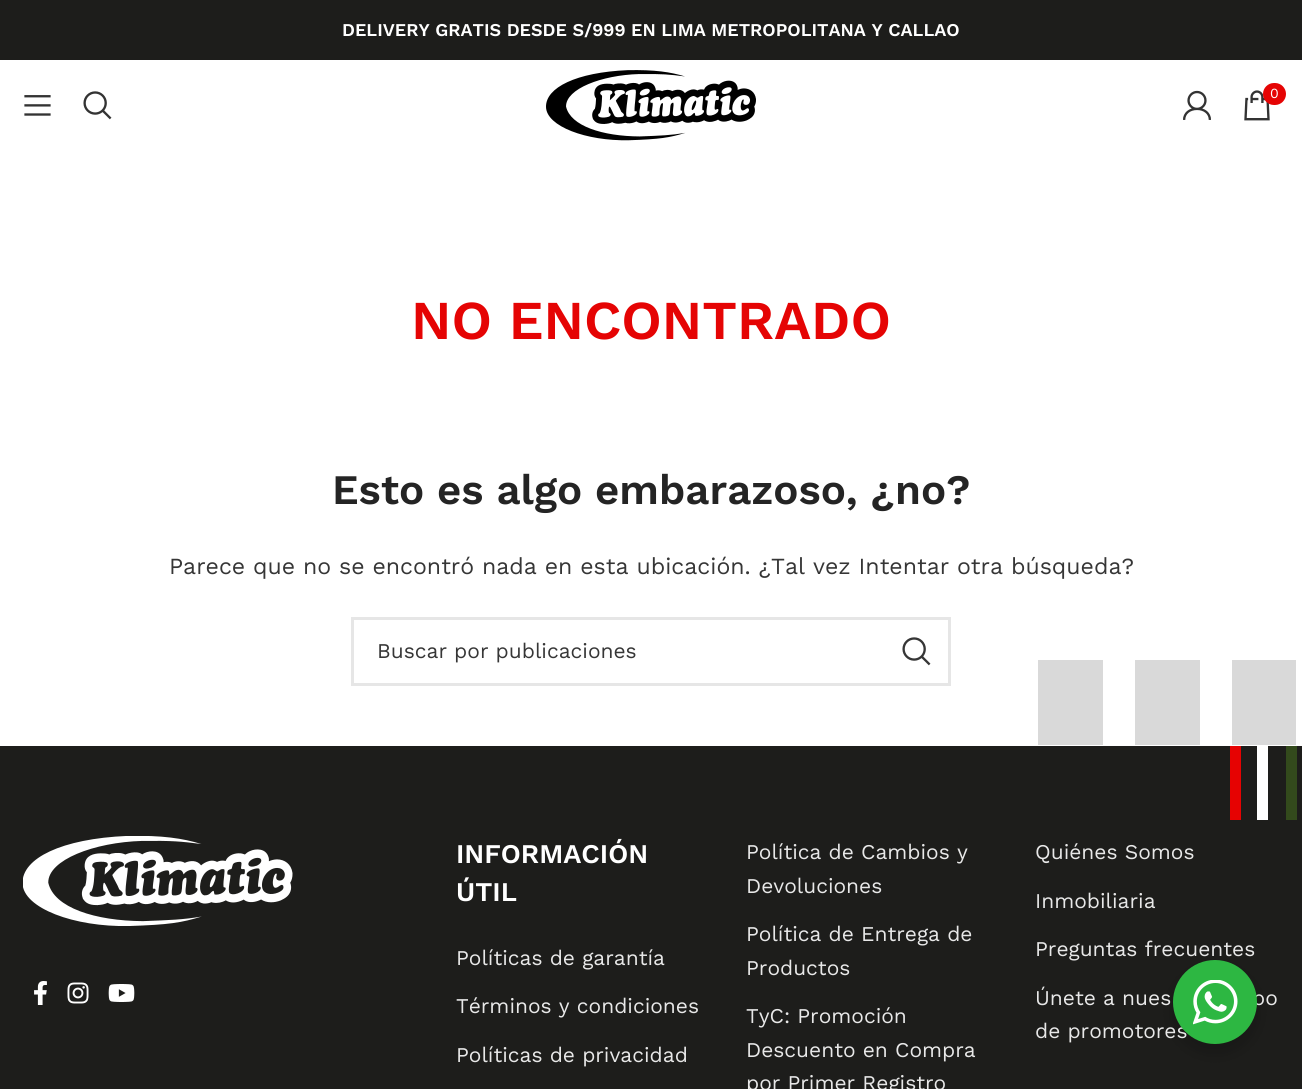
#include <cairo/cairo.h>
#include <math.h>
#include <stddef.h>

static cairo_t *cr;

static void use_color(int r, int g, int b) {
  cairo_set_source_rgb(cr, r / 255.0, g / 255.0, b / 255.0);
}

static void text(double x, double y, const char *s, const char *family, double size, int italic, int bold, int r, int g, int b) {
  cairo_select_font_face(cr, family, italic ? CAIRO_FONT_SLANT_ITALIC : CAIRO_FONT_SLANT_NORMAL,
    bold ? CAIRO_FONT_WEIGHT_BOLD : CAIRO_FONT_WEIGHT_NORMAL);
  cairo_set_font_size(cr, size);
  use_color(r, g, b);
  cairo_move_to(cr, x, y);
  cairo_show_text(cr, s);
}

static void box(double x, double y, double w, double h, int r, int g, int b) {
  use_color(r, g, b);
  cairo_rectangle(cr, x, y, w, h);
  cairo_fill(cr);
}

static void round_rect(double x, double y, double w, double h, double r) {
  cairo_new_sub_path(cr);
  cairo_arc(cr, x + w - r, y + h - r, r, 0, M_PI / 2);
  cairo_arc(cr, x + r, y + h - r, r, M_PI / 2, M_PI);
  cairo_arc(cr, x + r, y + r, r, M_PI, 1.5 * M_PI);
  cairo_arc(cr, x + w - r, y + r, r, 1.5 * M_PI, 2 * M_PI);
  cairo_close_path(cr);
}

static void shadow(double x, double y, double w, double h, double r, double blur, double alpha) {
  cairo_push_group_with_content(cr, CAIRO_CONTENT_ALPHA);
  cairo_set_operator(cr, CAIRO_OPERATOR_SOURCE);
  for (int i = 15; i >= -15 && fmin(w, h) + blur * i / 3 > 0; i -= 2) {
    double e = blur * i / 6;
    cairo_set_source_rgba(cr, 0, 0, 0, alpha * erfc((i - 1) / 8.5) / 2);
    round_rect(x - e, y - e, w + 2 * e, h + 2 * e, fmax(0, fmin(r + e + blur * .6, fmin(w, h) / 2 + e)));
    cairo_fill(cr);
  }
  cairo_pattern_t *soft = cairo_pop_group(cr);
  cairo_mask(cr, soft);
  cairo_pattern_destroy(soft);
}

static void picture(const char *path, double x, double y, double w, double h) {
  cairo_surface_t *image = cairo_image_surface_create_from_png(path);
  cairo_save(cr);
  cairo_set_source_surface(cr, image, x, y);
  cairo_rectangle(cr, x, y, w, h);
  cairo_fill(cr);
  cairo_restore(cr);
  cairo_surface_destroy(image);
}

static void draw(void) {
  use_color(255, 255, 255);
  cairo_paint(cr);
  box(0, 0, 1302, 60, 29, 29, 27);
  picture("img_01.png", 24, 95, 27, 21);
  picture("img_02.png", 83, 91, 29, 29);
  picture("img_03.png", 546, 70, 210, 71);
  picture("img_04.png", 1183, 90, 28, 30);
  picture("img_05.png", 1244, 90, 26, 31);
  use_color(229, 4, 4);
  round_rect(1263, 83, 23, 22, 11);
  cairo_fill(cr);
  cairo_rectangle(cr, 352.5, 618.5, 597, 66);
  use_color(230, 230, 230);
  cairo_set_line_width(cr, 3);
  cairo_stroke(cr);
  picture("img_06.png", 902, 637, 29, 29);
  box(1038, 660, 65, 85, 217, 217, 217);
  box(1135, 660, 65, 85, 217, 217, 217);
  box(1232, 660, 64, 85, 217, 217, 217);
  box(0, 746, 1302, 343, 29, 29, 27);
  box(1286, 746, 11, 74, 51, 74, 28);
  box(1257, 746, 11, 74, 255, 255, 255);
  box(1230, 746, 11, 74, 230, 2, 2);
  picture("img_07.png", 23, 836, 270, 90);
  picture("img_08.png", 34, 981, 13, 24);
  picture("img_09.png", 67, 982, 22, 22);
  picture("img_10.png", 108, 984, 27, 18);
  use_color(0, 0, 0);
  shadow(1170, 966, 90, 90, 45, 6, 0.14);
  text(342, 36, "DELIVERY GRATIS DESDE S/999 EN LIMA METROPOLITANA Y CALLAO", "Work Sans SemiBold", 18, 0, 0, 255, 255, 255);
  text(1270, 98, "0", "Work Sans", 14, 0, 0, 255, 255, 255);
  text(411, 339, "NO ENCONTRADO", "Work Sans SemiBold", 54.75, 0, 0, 229, 4, 4);
  text(332, 504, "Esto es algo embarazoso, ¿no?", "Work Sans SemiBold", 42, 0, 0, 36, 36, 36);
  text(169, 574, "Parece que no se encontró nada en esta ubicación. ¿Tal vez Intentar otra búsqueda?", "Work Sans", 23.1, 0, 0, 54, 54, 54);
  text(377, 658, "Buscar por publicaciones", "Work Sans", 21, 0, 0, 54, 54, 54);
  text(456, 863, "INFORMACIÓN", "Work Sans SemiBold", 27, 0, 0, 255, 255, 255);
  text(456, 901, "ÚTIL", "Work Sans SemiBold", 27, 0, 0, 255, 255, 255);
  text(456, 965, "Políticas de garantía", "Work Sans", 21, 0, 0, 232, 232, 232);
  text(456, 1013, "Términos y condiciones", "Work Sans", 21, 0, 0, 232, 232, 232);
  text(456, 1062, "Políticas de privacidad", "Work Sans", 21, 0, 0, 232, 232, 232);
  text(746, 859, "Política de Cambios y", "Work Sans", 21, 0, 0, 232, 232, 232);
  text(746, 893, "Devoluciones", "Work Sans", 21, 0, 0, 232, 232, 232);
  text(746, 941, "Política de Entrega de", "Work Sans", 21, 0, 0, 232, 232, 232);
  text(746, 975, "Productos", "Work Sans", 21, 0, 0, 232, 232, 232);
  text(746, 1023, "TyC: Promoción", "Work Sans", 21, 0, 0, 232, 232, 232);
  text(746, 1057, "Descuento en Compra", "Work Sans", 21, 0, 0, 232, 232, 232);
  text(746, 1090, "por Primer Registro", "Work Sans", 21, 0, 0, 232, 232, 232);
  text(1035, 859, "Quiénes Somos", "Work Sans", 21, 0, 0, 232, 232, 232);
  text(1035, 908, "Inmobiliaria", "Work Sans", 21, 0, 0, 232, 232, 232);
  text(1035, 956, "Preguntas frecuentes", "Work Sans", 21, 0, 0, 232, 232, 232);
  text(1035, 1005, "Únete a nues", "Work Sans", 21, 0, 0, 232, 232, 232);
  text(1252, 1005, "po", "Work Sans", 21, 0, 0, 232, 232, 232);
  text(1035, 1038, "de promotores", "Work Sans", 21, 0, 0, 232, 232, 232);
  use_color(45, 183, 66);
  cairo_new_path(cr);
  cairo_arc(cr, 1215, 1002, 42, 0, 2 * M_PI);
  cairo_fill(cr);
  picture("img_11.png", 1193, 980, 45, 45);
}

int main(void) {
  cairo_surface_t *surface = cairo_image_surface_create(CAIRO_FORMAT_RGB24, 1302, 1089);
  cr = cairo_create(surface);
  cairo_font_options_t *options = cairo_font_options_create();
  cairo_font_options_set_hint_metrics(options, CAIRO_HINT_METRICS_OFF);
  cairo_font_options_set_hint_style(options, CAIRO_HINT_STYLE_NONE);
  cairo_set_font_options(cr, options);
  cairo_set_miter_limit(cr, 4);
  draw();
  cairo_surface_write_to_png(surface, "out.png");
  cairo_font_options_destroy(options);
  cairo_destroy(cr);
  cairo_surface_destroy(surface);
  return 0;
}
